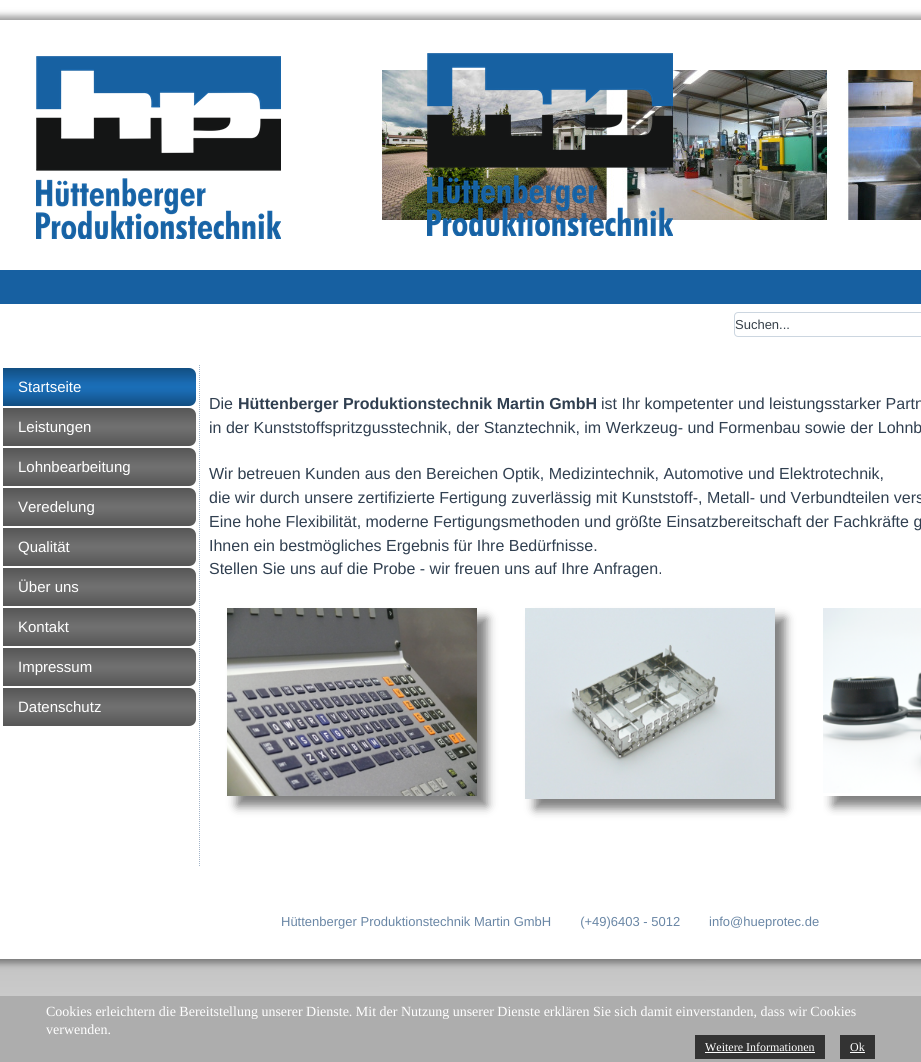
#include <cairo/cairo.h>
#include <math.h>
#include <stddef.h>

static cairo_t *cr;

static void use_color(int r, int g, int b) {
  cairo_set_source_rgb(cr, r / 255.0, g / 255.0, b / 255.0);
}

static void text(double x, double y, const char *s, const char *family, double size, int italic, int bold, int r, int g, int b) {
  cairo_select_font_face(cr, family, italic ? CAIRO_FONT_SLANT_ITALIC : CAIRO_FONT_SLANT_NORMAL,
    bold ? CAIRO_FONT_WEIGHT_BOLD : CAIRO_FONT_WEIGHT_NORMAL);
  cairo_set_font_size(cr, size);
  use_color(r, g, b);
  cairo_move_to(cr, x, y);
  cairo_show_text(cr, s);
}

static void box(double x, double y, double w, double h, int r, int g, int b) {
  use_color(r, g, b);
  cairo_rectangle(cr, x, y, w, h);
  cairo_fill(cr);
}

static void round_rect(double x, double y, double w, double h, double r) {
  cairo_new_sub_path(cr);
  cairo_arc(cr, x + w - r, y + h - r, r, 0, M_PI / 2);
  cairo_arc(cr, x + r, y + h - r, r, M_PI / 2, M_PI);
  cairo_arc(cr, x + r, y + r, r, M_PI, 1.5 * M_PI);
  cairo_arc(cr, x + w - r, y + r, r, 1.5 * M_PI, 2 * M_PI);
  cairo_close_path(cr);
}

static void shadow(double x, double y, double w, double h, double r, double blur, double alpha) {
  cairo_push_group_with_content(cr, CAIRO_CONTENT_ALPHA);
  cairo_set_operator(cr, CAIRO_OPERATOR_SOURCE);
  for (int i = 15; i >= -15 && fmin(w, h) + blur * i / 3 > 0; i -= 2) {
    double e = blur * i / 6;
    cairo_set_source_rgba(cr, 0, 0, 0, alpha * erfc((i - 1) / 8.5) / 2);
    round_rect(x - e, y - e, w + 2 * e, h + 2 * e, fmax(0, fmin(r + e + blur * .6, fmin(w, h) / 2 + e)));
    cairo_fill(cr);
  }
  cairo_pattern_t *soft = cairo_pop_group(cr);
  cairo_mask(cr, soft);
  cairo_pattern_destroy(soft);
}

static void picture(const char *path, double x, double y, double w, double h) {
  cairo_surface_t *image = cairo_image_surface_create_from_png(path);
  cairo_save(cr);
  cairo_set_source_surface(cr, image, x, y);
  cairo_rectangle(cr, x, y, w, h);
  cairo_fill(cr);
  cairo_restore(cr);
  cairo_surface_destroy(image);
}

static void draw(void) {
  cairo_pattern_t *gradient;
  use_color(255, 255, 255);
  cairo_paint(cr);
  gradient = cairo_pattern_create_linear(460, 0, 461, 1062);
  cairo_pattern_add_color_stop_rgba(gradient, 0, 0.11, 0.11, 0.11, 1);
  cairo_pattern_add_color_stop_rgba(gradient, 0.54, 0.502, 0.502, 0.502, 1);
  cairo_pattern_add_color_stop_rgba(gradient, 0.99, 0.831, 0.831, 0.831, 1);
  cairo_set_source(cr, gradient);
  cairo_pattern_destroy(gradient);
  cairo_rectangle(cr, 0, 959, 921, 37);
  cairo_fill(cr);
  use_color(0, 0, 0);
  shadow(-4, 16, 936, 947, 0, 3.5, 0.4);
  box(0, 20, 921, 939, 255, 255, 255);
  picture("img_01.png", 36, 53, 885, 186);
  box(0, 270, 921, 34, 23, 96, 161);
  round_rect(734.5, 312.5, 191, 24, 3.5);
  use_color(204, 214, 224);
  cairo_set_line_width(cr, 1);
  cairo_stroke(cr);
  cairo_new_path(cr);
  cairo_move_to(cr, 199.5, 365);
  cairo_line_to(cr, 199.5, 866);
  use_color(163, 180, 200);
  cairo_set_dash(cr, (double[]){1, 1}, 2, 0);
  cairo_stroke(cr);
  gradient = cairo_pattern_create_linear(100, 368, 100, 406);
  cairo_pattern_add_color_stop_rgba(gradient, 0, 0.071, 0.306, 0.506, 1);
  cairo_pattern_add_color_stop_rgba(gradient, 0.4, 0.102, 0.42, 0.702, 1);
  cairo_pattern_add_color_stop_rgba(gradient, 0.5, 0.102, 0.431, 0.718, 1);
  cairo_pattern_add_color_stop_rgba(gradient, 0.6, 0.102, 0.42, 0.702, 1);
  cairo_pattern_add_color_stop_rgba(gradient, 1, 0.071, 0.306, 0.506, 1);
  cairo_set_source(cr, gradient);
  cairo_pattern_destroy(gradient);
  cairo_new_path(cr);
  cairo_move_to(cr, 3, 368);
  cairo_line_to(cr, 189, 368);
  cairo_curve_to(cr, 193, 368, 196, 371, 196, 375);
  cairo_line_to(cr, 196, 399);
  cairo_curve_to(cr, 196, 403, 193, 406, 189, 406);
  cairo_line_to(cr, 3, 406);
  cairo_close_path(cr);
  cairo_fill(cr);
  gradient = cairo_pattern_create_linear(100, 408, 100, 446);
  cairo_pattern_add_color_stop_rgba(gradient, 0, 0.337, 0.337, 0.337, 1);
  cairo_pattern_add_color_stop_rgba(gradient, 0.4, 0.427, 0.427, 0.427, 1);
  cairo_pattern_add_color_stop_rgba(gradient, 0.5, 0.439, 0.439, 0.439, 1);
  cairo_pattern_add_color_stop_rgba(gradient, 0.6, 0.427, 0.427, 0.427, 1);
  cairo_pattern_add_color_stop_rgba(gradient, 1, 0.337, 0.337, 0.337, 1);
  cairo_set_source(cr, gradient);
  cairo_pattern_destroy(gradient);
  cairo_new_path(cr);
  cairo_move_to(cr, 3, 408);
  cairo_line_to(cr, 189, 408);
  cairo_curve_to(cr, 193, 408, 196, 411, 196, 415);
  cairo_line_to(cr, 196, 439);
  cairo_curve_to(cr, 196, 443, 193, 446, 189, 446);
  cairo_line_to(cr, 3, 446);
  cairo_close_path(cr);
  cairo_fill(cr);
  gradient = cairo_pattern_create_linear(100, 448, 100, 486);
  cairo_pattern_add_color_stop_rgba(gradient, 0, 0.337, 0.337, 0.337, 1);
  cairo_pattern_add_color_stop_rgba(gradient, 0.4, 0.427, 0.427, 0.427, 1);
  cairo_pattern_add_color_stop_rgba(gradient, 0.5, 0.439, 0.439, 0.439, 1);
  cairo_pattern_add_color_stop_rgba(gradient, 0.6, 0.427, 0.427, 0.427, 1);
  cairo_pattern_add_color_stop_rgba(gradient, 1, 0.337, 0.337, 0.337, 1);
  cairo_set_source(cr, gradient);
  cairo_pattern_destroy(gradient);
  cairo_new_path(cr);
  cairo_move_to(cr, 3, 448);
  cairo_line_to(cr, 189, 448);
  cairo_curve_to(cr, 193, 448, 196, 451, 196, 455);
  cairo_line_to(cr, 196, 479);
  cairo_curve_to(cr, 196, 483, 193, 486, 189, 486);
  cairo_line_to(cr, 3, 486);
  cairo_close_path(cr);
  cairo_fill(cr);
  gradient = cairo_pattern_create_linear(100, 488, 100, 526);
  cairo_pattern_add_color_stop_rgba(gradient, 0, 0.337, 0.337, 0.337, 1);
  cairo_pattern_add_color_stop_rgba(gradient, 0.4, 0.427, 0.427, 0.427, 1);
  cairo_pattern_add_color_stop_rgba(gradient, 0.5, 0.439, 0.439, 0.439, 1);
  cairo_pattern_add_color_stop_rgba(gradient, 0.6, 0.427, 0.427, 0.427, 1);
  cairo_pattern_add_color_stop_rgba(gradient, 1, 0.337, 0.337, 0.337, 1);
  cairo_set_source(cr, gradient);
  cairo_pattern_destroy(gradient);
  cairo_new_path(cr);
  cairo_move_to(cr, 3, 488);
  cairo_line_to(cr, 189, 488);
  cairo_curve_to(cr, 193, 488, 196, 491, 196, 495);
  cairo_line_to(cr, 196, 519);
  cairo_curve_to(cr, 196, 523, 193, 526, 189, 526);
  cairo_line_to(cr, 3, 526);
  cairo_close_path(cr);
  cairo_fill(cr);
  gradient = cairo_pattern_create_linear(100, 528, 100, 566);
  cairo_pattern_add_color_stop_rgba(gradient, 0, 0.337, 0.337, 0.337, 1);
  cairo_pattern_add_color_stop_rgba(gradient, 0.4, 0.427, 0.427, 0.427, 1);
  cairo_pattern_add_color_stop_rgba(gradient, 0.5, 0.439, 0.439, 0.439, 1);
  cairo_pattern_add_color_stop_rgba(gradient, 0.6, 0.427, 0.427, 0.427, 1);
  cairo_pattern_add_color_stop_rgba(gradient, 1, 0.337, 0.337, 0.337, 1);
  cairo_set_source(cr, gradient);
  cairo_pattern_destroy(gradient);
  cairo_new_path(cr);
  cairo_move_to(cr, 3, 528);
  cairo_line_to(cr, 189, 528);
  cairo_curve_to(cr, 193, 528, 196, 531, 196, 535);
  cairo_line_to(cr, 196, 559);
  cairo_curve_to(cr, 196, 563, 193, 566, 189, 566);
  cairo_line_to(cr, 3, 566);
  cairo_close_path(cr);
  cairo_fill(cr);
  gradient = cairo_pattern_create_linear(100, 568, 100, 606);
  cairo_pattern_add_color_stop_rgba(gradient, 0, 0.337, 0.337, 0.337, 1);
  cairo_pattern_add_color_stop_rgba(gradient, 0.4, 0.427, 0.427, 0.427, 1);
  cairo_pattern_add_color_stop_rgba(gradient, 0.5, 0.439, 0.439, 0.439, 1);
  cairo_pattern_add_color_stop_rgba(gradient, 0.6, 0.427, 0.427, 0.427, 1);
  cairo_pattern_add_color_stop_rgba(gradient, 1, 0.337, 0.337, 0.337, 1);
  cairo_set_source(cr, gradient);
  cairo_pattern_destroy(gradient);
  cairo_new_path(cr);
  cairo_move_to(cr, 3, 568);
  cairo_line_to(cr, 189, 568);
  cairo_curve_to(cr, 193, 568, 196, 571, 196, 575);
  cairo_line_to(cr, 196, 599);
  cairo_curve_to(cr, 196, 603, 193, 606, 189, 606);
  cairo_line_to(cr, 3, 606);
  cairo_close_path(cr);
  cairo_fill(cr);
  gradient = cairo_pattern_create_linear(100, 608, 100, 646);
  cairo_pattern_add_color_stop_rgba(gradient, 0, 0.337, 0.337, 0.337, 1);
  cairo_pattern_add_color_stop_rgba(gradient, 0.4, 0.427, 0.427, 0.427, 1);
  cairo_pattern_add_color_stop_rgba(gradient, 0.5, 0.439, 0.439, 0.439, 1);
  cairo_pattern_add_color_stop_rgba(gradient, 0.6, 0.427, 0.427, 0.427, 1);
  cairo_pattern_add_color_stop_rgba(gradient, 1, 0.337, 0.337, 0.337, 1);
  cairo_set_source(cr, gradient);
  cairo_pattern_destroy(gradient);
  cairo_new_path(cr);
  cairo_move_to(cr, 3, 608);
  cairo_line_to(cr, 189, 608);
  cairo_curve_to(cr, 193, 608, 196, 611, 196, 615);
  cairo_line_to(cr, 196, 639);
  cairo_curve_to(cr, 196, 643, 193, 646, 189, 646);
  cairo_line_to(cr, 3, 646);
  cairo_close_path(cr);
  cairo_fill(cr);
  gradient = cairo_pattern_create_linear(100, 648, 100, 686);
  cairo_pattern_add_color_stop_rgba(gradient, 0, 0.337, 0.337, 0.337, 1);
  cairo_pattern_add_color_stop_rgba(gradient, 0.4, 0.427, 0.427, 0.427, 1);
  cairo_pattern_add_color_stop_rgba(gradient, 0.5, 0.439, 0.439, 0.439, 1);
  cairo_pattern_add_color_stop_rgba(gradient, 0.6, 0.427, 0.427, 0.427, 1);
  cairo_pattern_add_color_stop_rgba(gradient, 1, 0.337, 0.337, 0.337, 1);
  cairo_set_source(cr, gradient);
  cairo_pattern_destroy(gradient);
  cairo_new_path(cr);
  cairo_move_to(cr, 3, 648);
  cairo_line_to(cr, 189, 648);
  cairo_curve_to(cr, 193, 648, 196, 651, 196, 655);
  cairo_line_to(cr, 196, 679);
  cairo_curve_to(cr, 196, 683, 193, 686, 189, 686);
  cairo_line_to(cr, 3, 686);
  cairo_close_path(cr);
  cairo_fill(cr);
  gradient = cairo_pattern_create_linear(100, 688, 100, 726);
  cairo_pattern_add_color_stop_rgba(gradient, 0, 0.337, 0.337, 0.337, 1);
  cairo_pattern_add_color_stop_rgba(gradient, 0.4, 0.427, 0.427, 0.427, 1);
  cairo_pattern_add_color_stop_rgba(gradient, 0.5, 0.439, 0.439, 0.439, 1);
  cairo_pattern_add_color_stop_rgba(gradient, 0.6, 0.427, 0.427, 0.427, 1);
  cairo_pattern_add_color_stop_rgba(gradient, 1, 0.337, 0.337, 0.337, 1);
  cairo_set_source(cr, gradient);
  cairo_pattern_destroy(gradient);
  cairo_new_path(cr);
  cairo_move_to(cr, 3, 688);
  cairo_line_to(cr, 189, 688);
  cairo_curve_to(cr, 193, 688, 196, 691, 196, 695);
  cairo_line_to(cr, 196, 719);
  cairo_curve_to(cr, 196, 723, 193, 726, 189, 726);
  cairo_line_to(cr, 3, 726);
  cairo_close_path(cr);
  cairo_fill(cr);
  use_color(128, 128, 128);
  shadow(237, 618, 250, 188, 0, 5, 1);
  picture("img_02.png", 227, 608, 250, 188);
  shadow(535, 618, 250, 191, 0, 5, 1);
  picture("img_03.png", 525, 608, 250, 191);
  cairo_save(cr);
  cairo_rectangle(cr, 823, 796, 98, 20);
  cairo_clip(cr);
  shadow(833, 618, 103, 188, 0, 5, 1);
  cairo_restore(cr);
  picture("img_04.png", 823, 608, 98, 185);
  box(0, 996, 921, 66, 173, 173, 173);
  box(695, 1035, 130, 24, 51, 51, 51);
  box(705, 1052, 110, 1, 255, 255, 255);
  box(840, 1035, 35, 24, 51, 51, 51);
  box(850, 1052, 15, 1, 255, 255, 255);
  text(735, 329, "Suchen...", "Liberation Sans", 13, 0, 0, 54, 64, 73);
  text(18, 392, "Startseite", "Liberation Sans", 15, 0, 0, 255, 255, 255);
  text(18, 432, "Leistungen", "Liberation Sans", 15, 0, 0, 255, 255, 255);
  text(18, 472, "Lohnbearbeitung", "Liberation Sans", 15, 0, 0, 255, 255, 255);
  text(18, 512, "Veredelung", "Liberation Sans", 15, 0, 0, 255, 255, 255);
  text(18, 552, "Qualität", "Liberation Sans", 15, 0, 0, 255, 255, 255);
  text(18, 592, "Über uns", "Liberation Sans", 15, 0, 0, 255, 255, 255);
  text(18, 632, "Kontakt", "Liberation Sans", 15, 0, 0, 255, 255, 255);
  text(18, 672, "Impressum", "Liberation Sans", 15, 0, 0, 255, 255, 255);
  text(18, 712, "Datenschutz", "Liberation Sans", 15, 0, 0, 255, 255, 255);
  text(209, 409, "Die", "Liberation Sans", 16, 0, 0, 48, 63, 80);
  text(238, 409, "Hüttenberger Produktionstechnik Martin GmbH", "Liberation Sans", 16, 0, 1, 48, 63, 80);
  text(601, 409, "ist Ihr kompetenter und leistungsstarker Partn", "Liberation Sans", 16, 0, 0, 48, 63, 80);
  text(209, 433, "in der Kunststoffspritzgusstechnik, der Stanztechnik, im Werkzeug- und Formenbau sowie der Lohnb", "Liberation Sans", 16, 0, 0, 48, 63, 80);
  text(209, 479, "Wir betreuen Kunden aus den Bereichen Optik, Medizintechnik, Automotive und Elektrotechnik,", "Liberation Sans", 16, 0, 0, 48, 63, 80);
  text(209, 503, "die wir durch unsere zertifizierte Fertigung zuverlässig mit Kunststoff-, Metall- und Verbundteilen vers", "Liberation Sans", 16, 0, 0, 48, 63, 80);
  text(209, 527, "Eine hohe Flexibilität, moderne Fertigungsmethoden und größte Einsatzbereitschaft der Fachkräfte g", "Liberation Sans", 16, 0, 0, 48, 63, 80);
  text(209, 551, "Ihnen ein bestmögliches Ergebnis für Ihre Bedürfnisse.", "Liberation Sans", 16, 0, 0, 48, 63, 80);
  text(209, 574, "Stellen Sie uns auf die Probe - wir freuen uns auf Ihre Anfragen.", "Liberation Sans", 16, 0, 0, 48, 63, 80);
  text(281, 926, "Hüttenberger Produktionstechnik Martin GmbH        (+49)6403 - 5012        info@hueprotec.de", "Liberation Sans", 13, 0, 0, 105, 134, 165);
  text(46, 1016, "Cookies erleichtern die Bereitstellung unserer Dienste. Mit der Nutzung unserer Dienste erklären Sie sich damit einverstanden, dass wir Cookies", "Liberation Serif", 14, 0, 0, 255, 255, 255);
  text(46, 1034, "verwenden.", "Liberation Serif", 14, 0, 0, 255, 255, 255);
  text(705, 1051, "Weitere Informationen", "Liberation Serif", 12, 0, 0, 255, 255, 255);
  text(850, 1051, "Ok", "Liberation Serif", 12, 0, 0, 255, 255, 255);
}

int main(void) {
  cairo_surface_t *surface = cairo_image_surface_create(CAIRO_FORMAT_RGB24, 921, 1062);
  cr = cairo_create(surface);
  cairo_font_options_t *options = cairo_font_options_create();
  cairo_font_options_set_hint_metrics(options, CAIRO_HINT_METRICS_OFF);
  cairo_font_options_set_hint_style(options, CAIRO_HINT_STYLE_NONE);
  cairo_set_font_options(cr, options);
  cairo_set_miter_limit(cr, 4);
  draw();
  cairo_surface_write_to_png(surface, "out.png");
  cairo_font_options_destroy(options);
  cairo_destroy(cr);
  cairo_surface_destroy(surface);
  return 0;
}
